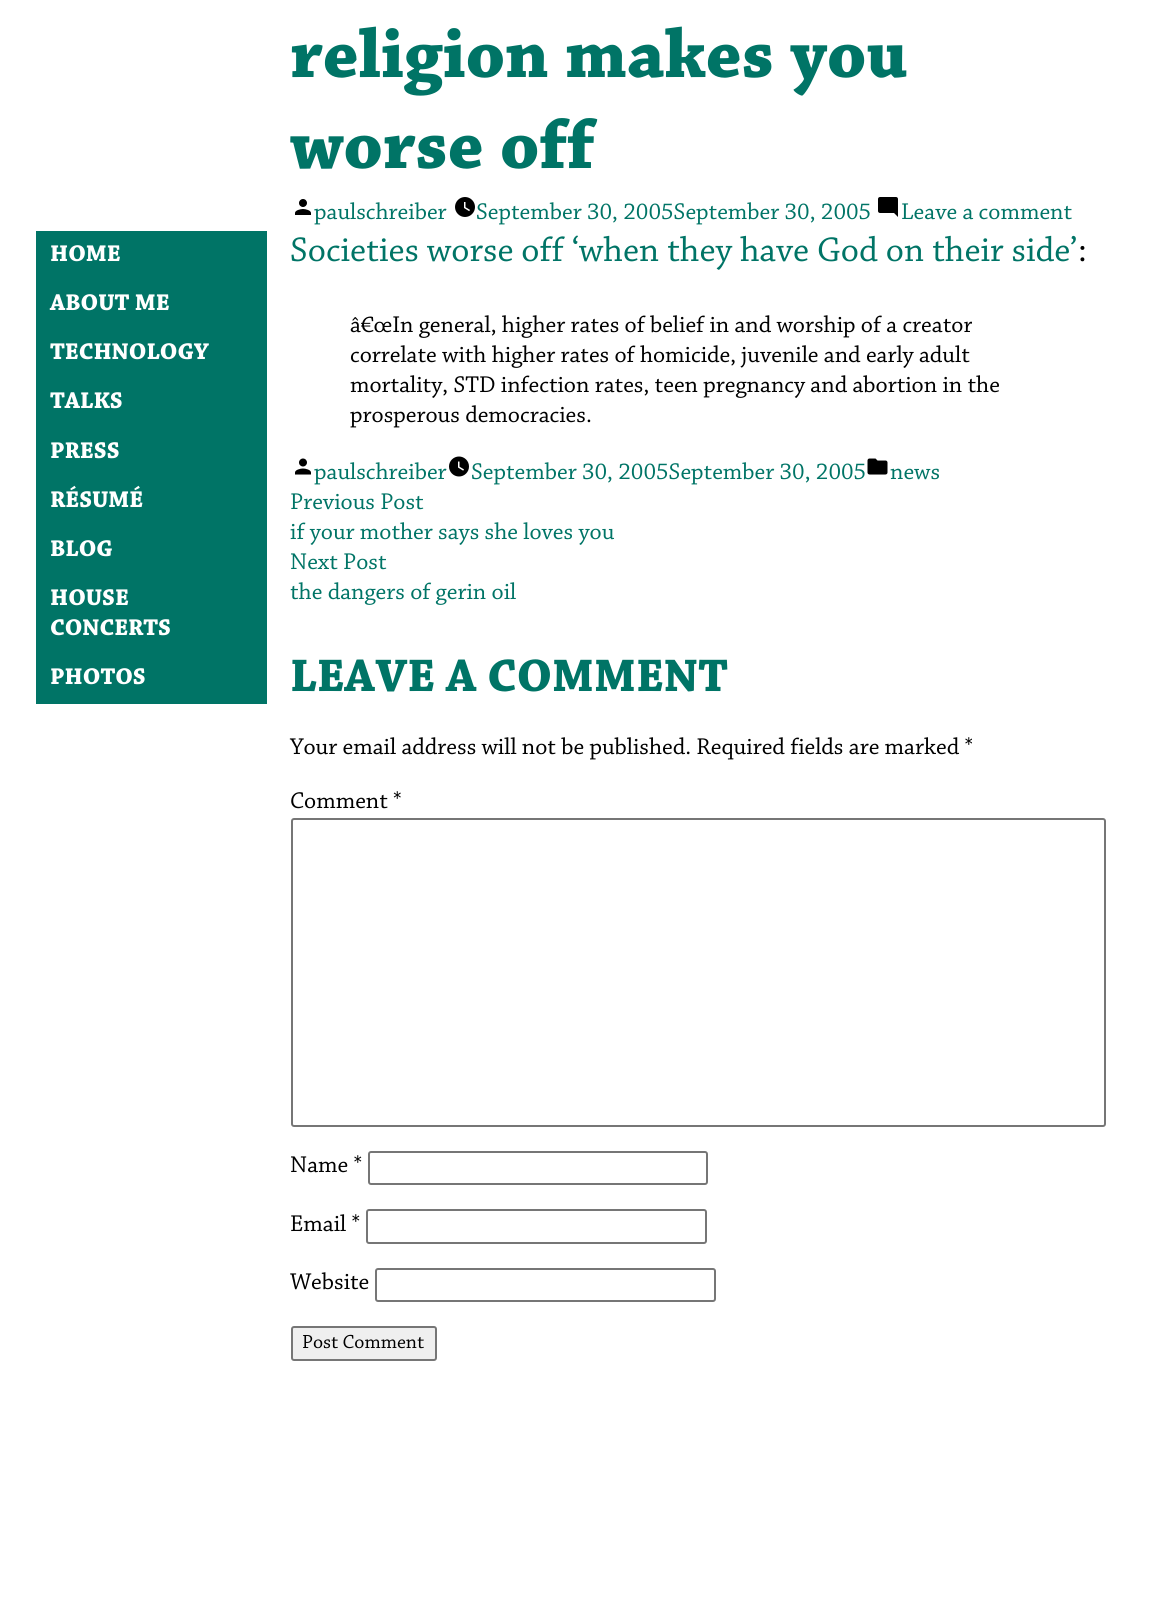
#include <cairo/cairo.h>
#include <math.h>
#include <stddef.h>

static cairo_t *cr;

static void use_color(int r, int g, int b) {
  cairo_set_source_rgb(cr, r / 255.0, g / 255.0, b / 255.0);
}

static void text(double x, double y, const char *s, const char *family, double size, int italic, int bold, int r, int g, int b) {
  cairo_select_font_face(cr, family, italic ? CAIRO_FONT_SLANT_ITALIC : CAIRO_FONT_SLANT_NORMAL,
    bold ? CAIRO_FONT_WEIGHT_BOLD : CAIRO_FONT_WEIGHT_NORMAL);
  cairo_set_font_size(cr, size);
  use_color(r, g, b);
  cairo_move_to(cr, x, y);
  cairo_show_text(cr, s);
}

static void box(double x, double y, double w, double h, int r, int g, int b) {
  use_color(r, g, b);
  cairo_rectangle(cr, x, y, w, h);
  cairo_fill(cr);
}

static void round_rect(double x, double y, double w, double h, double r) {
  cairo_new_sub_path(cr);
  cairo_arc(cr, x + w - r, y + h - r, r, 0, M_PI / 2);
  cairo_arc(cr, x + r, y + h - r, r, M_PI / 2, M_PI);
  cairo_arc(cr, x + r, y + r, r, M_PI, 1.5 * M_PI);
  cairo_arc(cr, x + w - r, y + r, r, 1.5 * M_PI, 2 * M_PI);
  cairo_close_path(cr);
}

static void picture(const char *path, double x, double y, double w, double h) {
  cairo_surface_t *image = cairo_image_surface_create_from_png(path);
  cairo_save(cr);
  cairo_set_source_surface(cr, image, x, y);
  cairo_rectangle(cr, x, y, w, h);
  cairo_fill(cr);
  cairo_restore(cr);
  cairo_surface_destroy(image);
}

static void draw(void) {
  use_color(255, 255, 255);
  cairo_paint(cr);
  box(36, 231, 231, 473, 0, 116, 102);
  picture("img_01.png", 295, 199, 16, 16);
  picture("img_02.png", 455, 197, 20, 20);
  picture("img_03.png", 878, 197, 20, 20);
  picture("img_04.png", 295, 458, 16, 17);
  picture("img_05.png", 449, 456, 20, 21);
  picture("img_06.png", 867, 458, 21, 17);
  round_rect(292, 819, 813, 307, 2);
  use_color(118, 118, 118);
  cairo_stroke(cr);
  round_rect(369, 1152, 338, 32, 2);
  cairo_stroke(cr);
  round_rect(367, 1210, 339, 33, 2);
  cairo_stroke(cr);
  round_rect(376, 1269, 339, 32, 2);
  cairo_stroke(cr);
  use_color(239, 239, 239);
  round_rect(292, 1327, 144, 33, 2);
  cairo_fill_preserve(cr);
  use_color(118, 118, 118);
  cairo_stroke(cr);
  text(50, 261, "HOME", "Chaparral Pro", 24, 0, 1, 255, 255, 255);
  text(50, 310, "ABOUT ME", "Chaparral Pro", 24, 0, 1, 255, 255, 255);
  text(50, 359, "TECHNOLOGY", "Chaparral Pro", 24, 0, 1, 255, 255, 255);
  text(50, 408, "TALKS", "Chaparral Pro", 24, 0, 1, 255, 255, 255);
  text(50, 458, "PRESS", "Chaparral Pro", 24, 0, 1, 255, 255, 255);
  text(50, 507, "RÉSUMÉ", "Chaparral Pro", 24, 0, 1, 255, 255, 255);
  text(50, 556, "BLOG", "Chaparral Pro", 24, 0, 1, 255, 255, 255);
  text(50, 605, "HOUSE", "Chaparral Pro", 24, 0, 1, 255, 255, 255);
  text(50, 635, "CONCERTS", "Chaparral Pro", 24, 0, 1, 255, 255, 255);
  text(50, 684, "PHOTOS", "Chaparral Pro", 24, 0, 1, 255, 255, 255);
  text(290, 77, "religion makes you", "Chaparral Pro", 72, 0, 1, 0, 116, 102);
  text(290, 168, "worse off", "Chaparral Pro", 72, 0, 1, 0, 116, 102);
  text(314, 219, "paulschreiber", "Chaparral Pro", 24, 0, 0, 0, 116, 102);
  text(476, 219, "September 30, 2005September 30, 2005", "Chaparral Pro", 24, 0, 0, 0, 116, 102);
  text(901, 219, "Leave a comment", "Chaparral Pro", 24, 0, 0, 0, 116, 102);
  text(290, 261, "Societies worse off ‘when they have God on their side’", "Chaparral Pro", 36, 0, 0, 0, 116, 102);
  text(1078, 261, ":", "Chaparral Pro", 36, 0, 0, 0, 0, 0);
  text(350, 332, "â€œIn general, higher rates of belief in and worship of a creator", "Chaparral Pro", 24, 0, 0, 0, 0, 0);
  text(350, 362, "correlate with higher rates of homicide, juvenile and early adult", "Chaparral Pro", 24, 0, 0, 0, 0, 0);
  text(350, 392, "mortality, STD infection rates, teen pregnancy and abortion in the", "Chaparral Pro", 24, 0, 0, 0, 0, 0);
  text(350, 422, "prosperous democracies.", "Chaparral Pro", 24, 0, 0, 0, 0, 0);
  text(314, 479, "paulschreiber", "Chaparral Pro", 24, 0, 0, 0, 116, 102);
  text(471, 479, "September 30, 2005September 30, 2005", "Chaparral Pro", 24, 0, 0, 0, 116, 102);
  text(890, 479, "news", "Chaparral Pro", 24, 0, 0, 0, 116, 102);
  text(290, 509, "Previous Post", "Chaparral Pro", 24, 0, 0, 0, 116, 102);
  text(290, 539, "if your mother says she loves you", "Chaparral Pro", 24, 0, 0, 0, 116, 102);
  text(290, 569, "Next Post", "Chaparral Pro", 24, 0, 0, 0, 116, 102);
  text(290, 599, "the dangers of gerin oil", "Chaparral Pro", 24, 0, 0, 0, 116, 102);
  text(290, 691, "LEAVE A COMMENT", "Chaparral Pro", 48, 0, 1, 0, 116, 102);
  text(290, 754, "Your email address will not be published. Required fields are marked *", "Chaparral Pro", 24, 0, 0, 0, 0, 0);
  text(290, 808, "Comment *", "Chaparral Pro", 24, 0, 0, 0, 0, 0);
  text(290, 1172, "Name *", "Chaparral Pro", 24, 0, 0, 0, 0, 0);
  text(290, 1231, "Email *", "Chaparral Pro", 24, 0, 0, 0, 0, 0);
  text(290, 1289, "Website", "Chaparral Pro", 24, 0, 0, 0, 0, 0);
  text(302, 1348, "Post Comment", "Chaparral Pro", 20, 0, 0, 0, 0, 0);
}

int main(void) {
  cairo_surface_t *surface = cairo_image_surface_create(CAIRO_FORMAT_RGB24, 1175, 1621);
  cr = cairo_create(surface);
  cairo_font_options_t *options = cairo_font_options_create();
  cairo_font_options_set_hint_metrics(options, CAIRO_HINT_METRICS_OFF);
  cairo_font_options_set_hint_style(options, CAIRO_HINT_STYLE_NONE);
  cairo_set_font_options(cr, options);
  cairo_set_miter_limit(cr, 4);
  draw();
  cairo_surface_write_to_png(surface, "out.png");
  cairo_font_options_destroy(options);
  cairo_destroy(cr);
  cairo_surface_destroy(surface);
  return 0;
}
